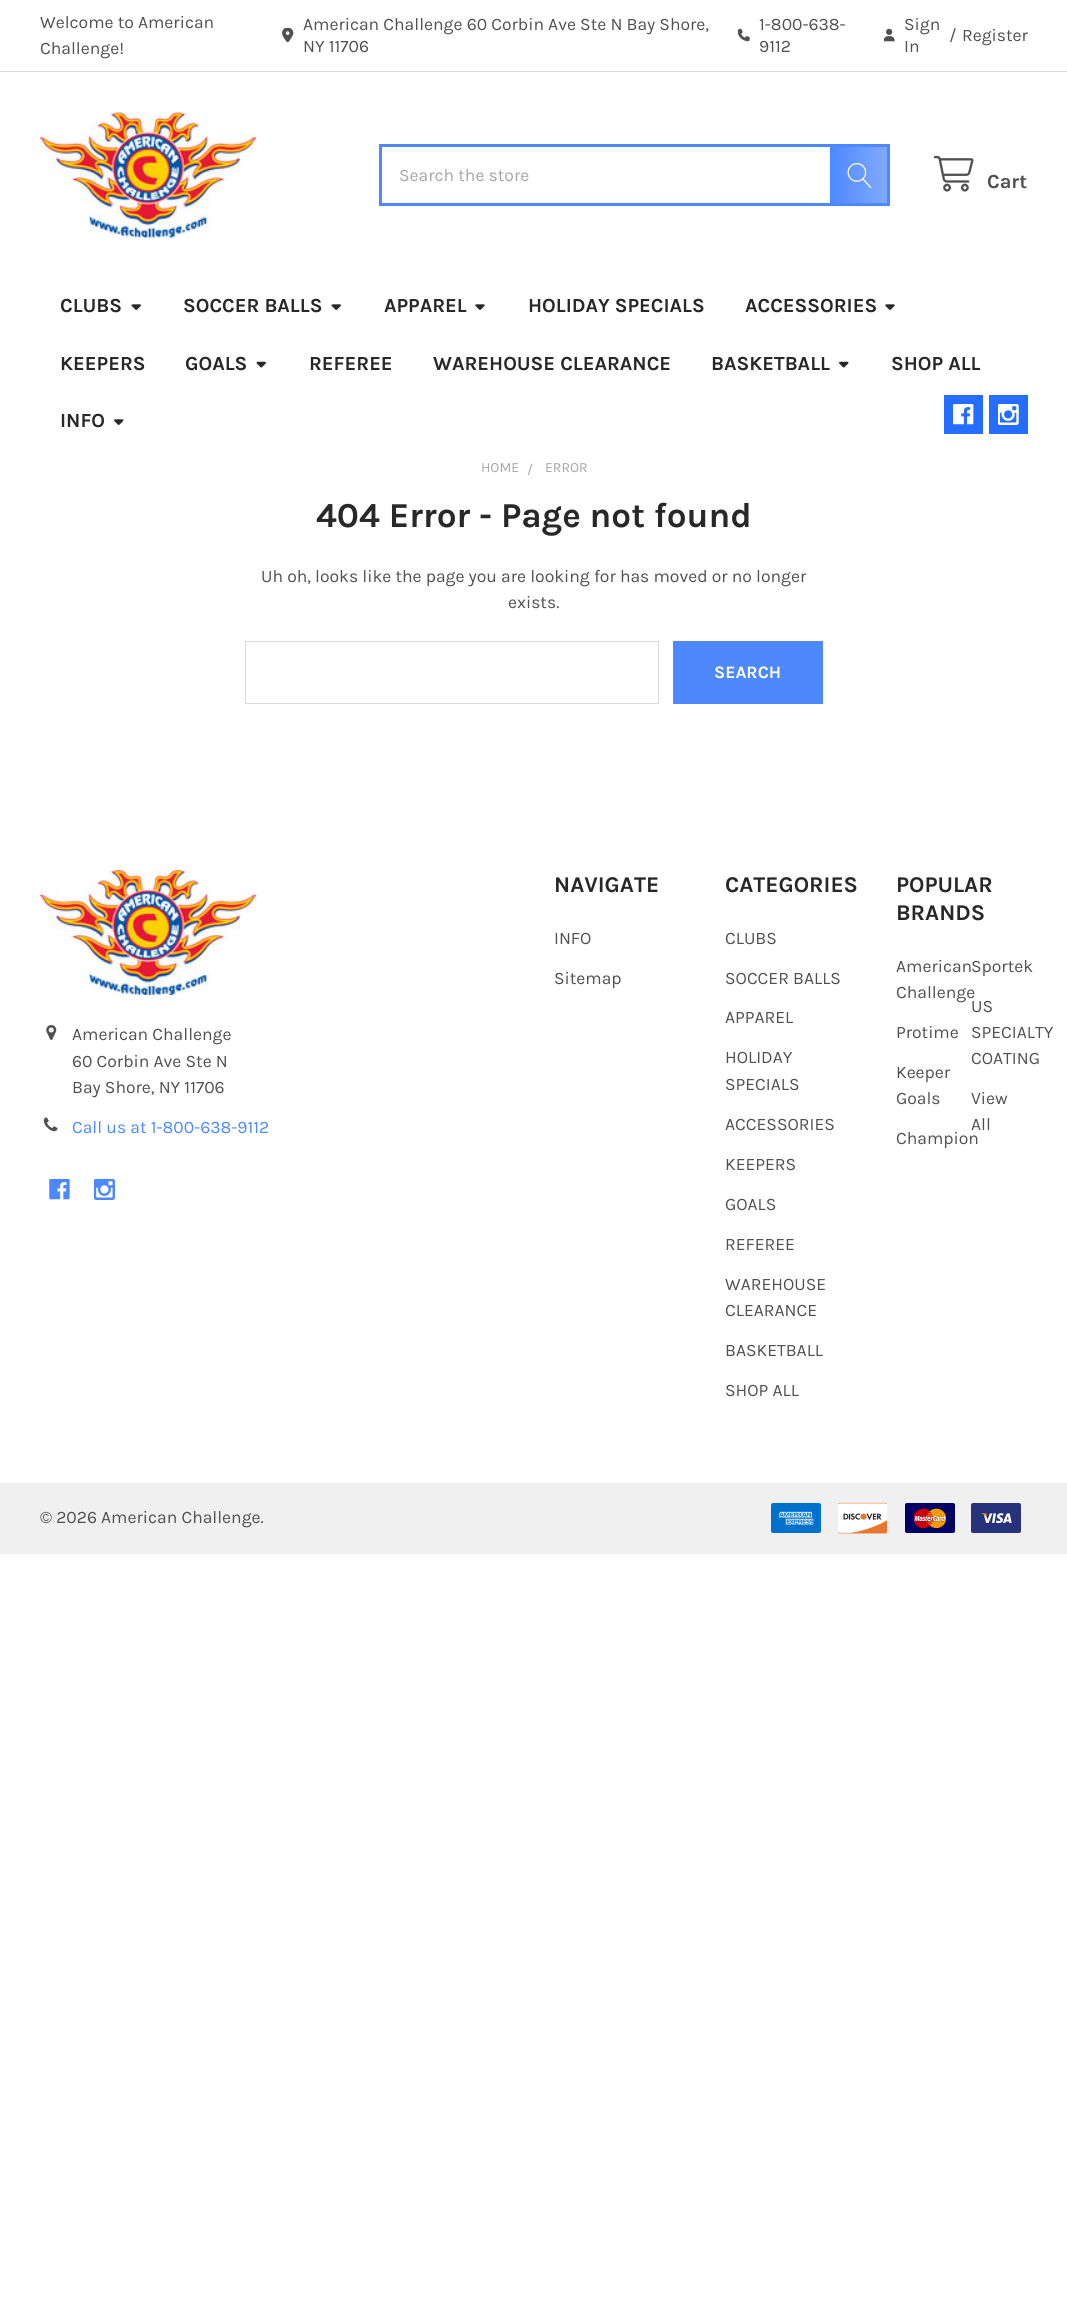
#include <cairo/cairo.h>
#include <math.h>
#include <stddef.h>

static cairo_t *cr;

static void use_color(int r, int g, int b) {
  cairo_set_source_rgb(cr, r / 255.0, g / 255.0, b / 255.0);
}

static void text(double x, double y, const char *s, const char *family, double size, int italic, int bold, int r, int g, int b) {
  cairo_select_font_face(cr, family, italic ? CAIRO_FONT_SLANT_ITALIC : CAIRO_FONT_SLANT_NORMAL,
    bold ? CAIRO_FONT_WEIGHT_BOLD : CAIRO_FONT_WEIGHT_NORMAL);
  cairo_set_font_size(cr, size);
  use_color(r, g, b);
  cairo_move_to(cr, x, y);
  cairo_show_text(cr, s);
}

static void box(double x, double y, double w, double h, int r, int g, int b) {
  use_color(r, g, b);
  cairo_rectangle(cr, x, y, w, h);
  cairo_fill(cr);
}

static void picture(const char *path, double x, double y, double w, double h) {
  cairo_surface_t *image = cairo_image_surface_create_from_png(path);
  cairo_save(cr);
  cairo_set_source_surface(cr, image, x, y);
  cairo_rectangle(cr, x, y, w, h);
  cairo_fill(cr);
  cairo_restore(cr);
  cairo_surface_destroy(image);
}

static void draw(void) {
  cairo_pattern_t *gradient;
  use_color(255, 255, 255);
  cairo_paint(cr);
  box(0, 71, 1067, 1, 220, 220, 220);
  picture("img_01.png", 282, 28, 12, 14);
  picture("img_02.png", 738, 28, 12, 14);
  picture("img_03.png", 884, 28, 11, 14);
  picture("img_04.png", 40, 112, 217, 126);
  cairo_rectangle(cr, 380.5, 145.5, 508, 59);
  use_color(77, 136, 255);
  cairo_set_line_width(cr, 3);
  cairo_stroke(cr);
  gradient = cairo_pattern_create_linear(830, 175, 890, 175);
  cairo_pattern_add_color_stop_rgba(gradient, 0, 0.302, 0.533, 1, 1);
  cairo_pattern_add_color_stop_rgba(gradient, 1, 0.302, 0.533, 1, 0.7);
  cairo_set_source(cr, gradient);
  cairo_pattern_destroy(gradient);
  cairo_rectangle(cr, 830, 147, 57, 56);
  cairo_fill(cr);
  picture("img_05.png", 847, 163, 25, 25);
  picture("img_06.png", 934, 155, 40, 37);
  picture("img_07.png", 131, 304, 10, 6);
  picture("img_07.png", 331, 304, 10, 6);
  picture("img_08.png", 475, 304, 10, 6);
  picture("img_08.png", 885, 304, 10, 6);
  picture("img_09.png", 256, 361, 10, 7);
  picture("img_10.png", 839, 361, 10, 7);
  picture("img_11.png", 114, 419, 10, 6);
  box(944, 395, 39, 39, 36, 109, 255);
  picture("img_12.png", 953, 404, 21, 21);
  box(989, 395, 39, 39, 36, 109, 255);
  picture("img_13.png", 998, 404, 21, 21);
  cairo_rectangle(cr, 245.5, 641.5, 413, 62);
  use_color(220, 220, 220);
  cairo_set_line_width(cr, 1);
  cairo_stroke(cr);
  box(673, 641, 150, 63, 77, 136, 255);
  picture("img_14.png", 40, 870, 217, 125);
  picture("img_15.png", 46, 1025, 11, 15);
  picture("img_16.png", 43, 1117, 15, 15);
  picture("img_17.png", 49, 1179, 21, 21);
  picture("img_18.png", 94, 1179, 21, 21);
  box(0, 1483, 1067, 71, 240, 240, 240);
  picture("img_19.png", 771, 1503, 50, 30);
  picture("img_20.png", 838, 1502, 49, 32);
  picture("img_21.png", 905, 1503, 50, 30);
  picture("img_22.png", 971, 1503, 50, 30);
  text(40, 28, "Welcome to American", "Karla", 17.5, 0, 0, 80, 80, 80);
  text(40, 54, "Challenge!", "Karla", 17.5, 0, 0, 80, 80, 80);
  text(303, 30, "American Challenge 60 Corbin Ave Ste N Bay Shore,", "Karla", 17.5, 0, 0, 80, 80, 80);
  text(303, 52, "NY 11706", "Karla", 17.5, 0, 0, 80, 80, 80);
  text(759, 30, "1-800-638-", "Karla", 17.5, 0, 0, 80, 80, 80);
  text(759, 52, "9112", "Karla", 17.5, 0, 0, 80, 80, 80);
  text(904, 30, "Sign", "Karla", 17.5, 0, 0, 80, 80, 80);
  text(904, 52, "In", "Karla", 17.5, 0, 0, 80, 80, 80);
  text(949, 41, "/", "Karla", 17.5, 0, 0, 80, 80, 80);
  text(962, 41, "Register", "Karla", 17.5, 0, 0, 80, 80, 80);
  text(399, 181, "Search the store", "Karla", 17.5, 0, 0, 165, 165, 165);
  text(987, 188, "Cart", "Karla", 20, 0, 1, 80, 80, 80);
  text(60, 312, "CLUBS", "Karla", 20, 0, 1, 40, 40, 40);
  text(183, 312, "SOCCER BALLS", "Karla", 20, 0, 1, 40, 40, 40);
  text(384, 312, "APPAREL", "Karla", 20, 0, 1, 40, 40, 40);
  text(528, 312, "HOLIDAY SPECIALS", "Karla", 20, 0, 1, 40, 40, 40);
  text(745, 312, "ACCESSORIES", "Karla", 20, 0, 1, 40, 40, 40);
  text(60, 370, "KEEPERS", "Karla", 20, 0, 1, 40, 40, 40);
  text(185, 370, "GOALS", "Karla", 20, 0, 1, 40, 40, 40);
  text(309, 370, "REFEREE", "Karla", 20, 0, 1, 40, 40, 40);
  text(433, 370, "WAREHOUSE CLEARANCE", "Karla", 20, 0, 1, 40, 40, 40);
  text(711, 370, "BASKETBALL", "Karla", 20, 0, 1, 40, 40, 40);
  text(891, 370, "SHOP ALL", "Karla", 20, 0, 1, 40, 40, 40);
  text(60, 427, "INFO", "Karla", 20, 0, 1, 40, 40, 40);
  text(481, 472, "HOME", "Karla", 14, 0, 0, 165, 165, 165);
  text(527, 474, "/", "Karla", 14, 0, 0, 165, 165, 165);
  text(545, 472, "ERROR", "Karla", 14, 0, 0, 165, 165, 165);
  text(316, 527, "404 Error - Page not found", "Karla", 35, 0, 1, 40, 40, 40);
  text(261, 582, "Uh oh, looks like the page you are looking for has moved or no longer", "Karla", 17.5, 0, 0, 80, 80, 80);
  text(508, 608, "exists.", "Karla", 17.5, 0, 0, 80, 80, 80);
  text(714, 678, "SEARCH", "Karla", 17.5, 0, 1, 255, 255, 255);
  text(72, 1040, "American Challenge", "Karla", 17.5, 0, 0, 80, 80, 80);
  text(72, 1067, "60 Corbin Ave Ste N", "Karla", 17.5, 0, 0, 80, 80, 80);
  text(72, 1093, "Bay Shore, NY 11706", "Karla", 17.5, 0, 0, 80, 80, 80);
  text(72, 1133, "Call us at 1-800-638-9112", "Karla", 17.5, 0, 0, 77, 136, 255);
  text(554, 892, "NAVIGATE", "Karla", 22.5, 0, 1, 40, 40, 40);
  text(554, 944, "INFO", "Karla", 17.5, 0, 0, 80, 80, 80);
  text(554, 984, "Sitemap", "Karla", 17.5, 0, 0, 80, 80, 80);
  text(725, 892, "CATEGORIES", "Karla", 22.5, 0, 1, 40, 40, 40);
  text(725, 944, "CLUBS", "Karla", 17.5, 0, 0, 80, 80, 80);
  text(725, 984, "SOCCER BALLS", "Karla", 17.5, 0, 0, 80, 80, 80);
  text(725, 1023, "APPAREL", "Karla", 17.5, 0, 0, 80, 80, 80);
  text(725, 1063, "HOLIDAY", "Karla", 17.5, 0, 0, 80, 80, 80);
  text(725, 1090, "SPECIALS", "Karla", 17.5, 0, 0, 80, 80, 80);
  text(725, 1130, "ACCESSORIES", "Karla", 17.5, 0, 0, 80, 80, 80);
  text(725, 1170, "KEEPERS", "Karla", 17.5, 0, 0, 80, 80, 80);
  text(725, 1210, "GOALS", "Karla", 17.5, 0, 0, 80, 80, 80);
  text(725, 1250, "REFEREE", "Karla", 17.5, 0, 0, 80, 80, 80);
  text(725, 1290, "WAREHOUSE", "Karla", 17.5, 0, 0, 80, 80, 80);
  text(725, 1316, "CLEARANCE", "Karla", 17.5, 0, 0, 80, 80, 80);
  text(725, 1356, "BASKETBALL", "Karla", 17.5, 0, 0, 80, 80, 80);
  text(725, 1396, "SHOP ALL", "Karla", 17.5, 0, 0, 80, 80, 80);
  text(896, 892, "POPULAR", "Karla", 22.5, 0, 1, 40, 40, 40);
  text(896, 920, "BRANDS", "Karla", 22.5, 0, 1, 40, 40, 40);
  text(896, 972, "American", "Karla", 17.5, 0, 0, 80, 80, 80);
  text(896, 998, "Challenge", "Karla", 17.5, 0, 0, 80, 80, 80);
  text(971, 972, "Sportek", "Karla", 17.5, 0, 0, 80, 80, 80);
  text(896, 1038, "Protime", "Karla", 17.5, 0, 0, 80, 80, 80);
  text(971, 1012, "US", "Karla", 17.5, 0, 0, 80, 80, 80);
  text(971, 1038, "SPECIALTY", "Karla", 17.5, 0, 0, 80, 80, 80);
  text(971, 1064, "COATING", "Karla", 17.5, 0, 0, 80, 80, 80);
  text(896, 1078, "Keeper", "Karla", 17.5, 0, 0, 80, 80, 80);
  text(896, 1104, "Goals", "Karla", 17.5, 0, 0, 80, 80, 80);
  text(971, 1104, "View", "Karla", 17.5, 0, 0, 80, 80, 80);
  text(971, 1130, "All", "Karla", 17.5, 0, 0, 80, 80, 80);
  text(896, 1144, "Champion", "Karla", 17.5, 0, 0, 80, 80, 80);
  text(40, 1523, "© 2026 American Challenge.", "Karla", 17.5, 0, 0, 80, 80, 80);
}

int main(void) {
  cairo_surface_t *surface = cairo_image_surface_create(CAIRO_FORMAT_RGB24, 1067, 2321);
  cr = cairo_create(surface);
  cairo_font_options_t *options = cairo_font_options_create();
  cairo_font_options_set_hint_metrics(options, CAIRO_HINT_METRICS_OFF);
  cairo_font_options_set_hint_style(options, CAIRO_HINT_STYLE_NONE);
  cairo_set_font_options(cr, options);
  cairo_set_miter_limit(cr, 4);
  draw();
  cairo_surface_write_to_png(surface, "out.png");
  cairo_font_options_destroy(options);
  cairo_destroy(cr);
  cairo_surface_destroy(surface);
  return 0;
}
